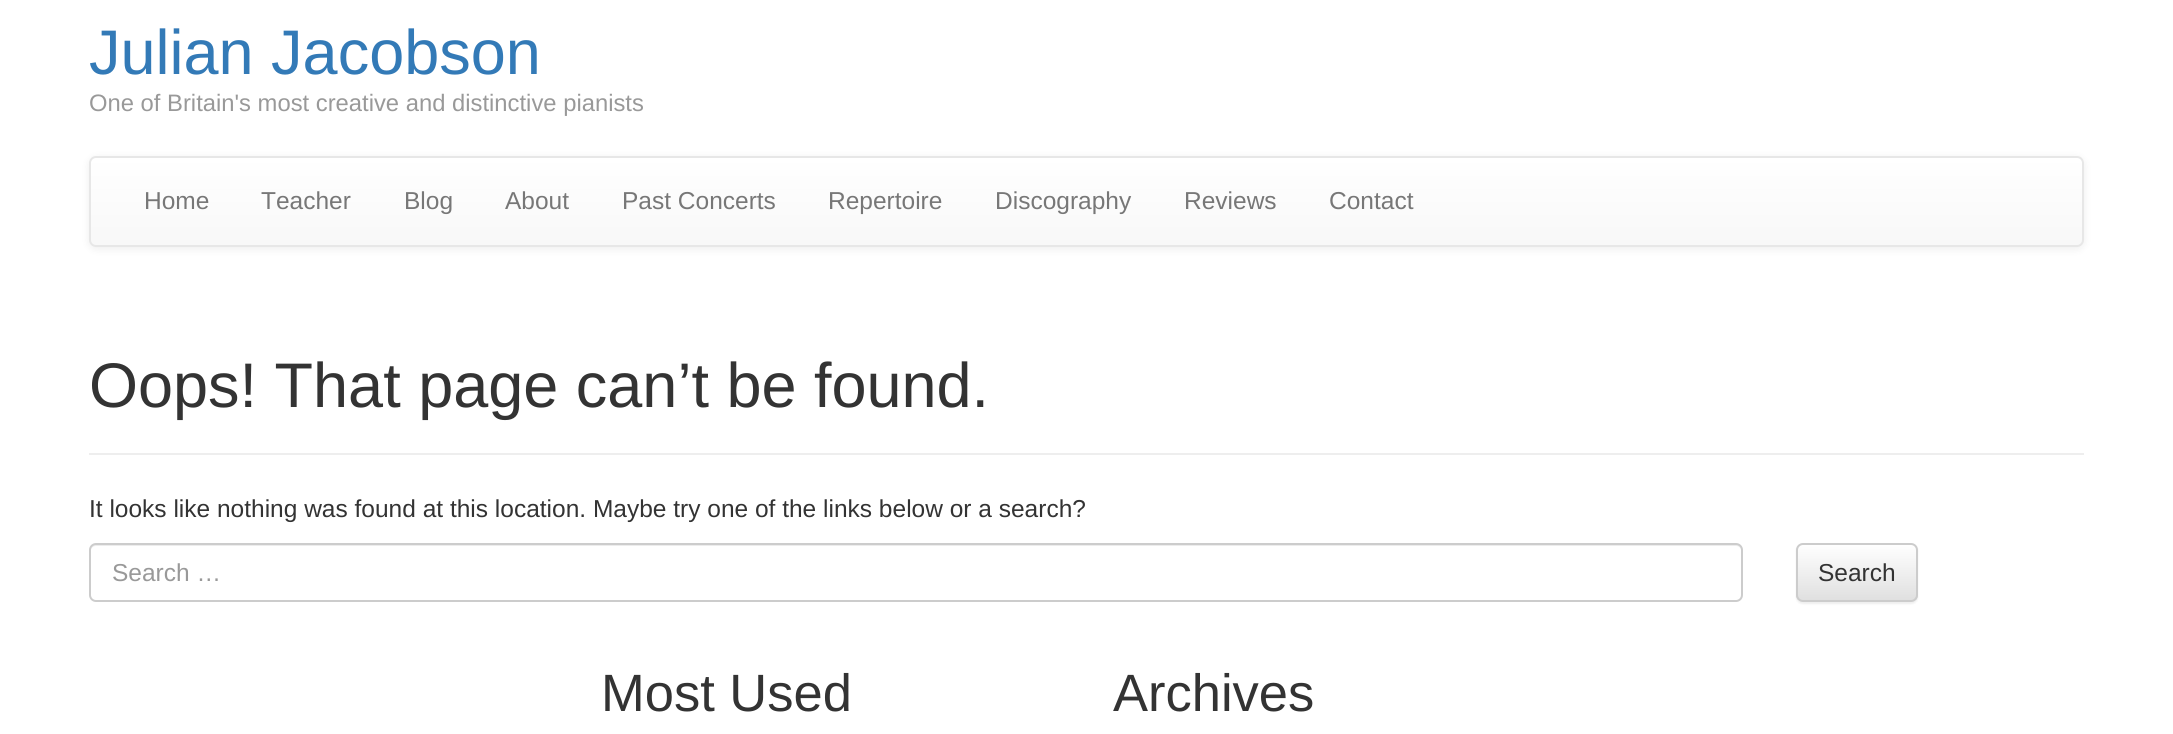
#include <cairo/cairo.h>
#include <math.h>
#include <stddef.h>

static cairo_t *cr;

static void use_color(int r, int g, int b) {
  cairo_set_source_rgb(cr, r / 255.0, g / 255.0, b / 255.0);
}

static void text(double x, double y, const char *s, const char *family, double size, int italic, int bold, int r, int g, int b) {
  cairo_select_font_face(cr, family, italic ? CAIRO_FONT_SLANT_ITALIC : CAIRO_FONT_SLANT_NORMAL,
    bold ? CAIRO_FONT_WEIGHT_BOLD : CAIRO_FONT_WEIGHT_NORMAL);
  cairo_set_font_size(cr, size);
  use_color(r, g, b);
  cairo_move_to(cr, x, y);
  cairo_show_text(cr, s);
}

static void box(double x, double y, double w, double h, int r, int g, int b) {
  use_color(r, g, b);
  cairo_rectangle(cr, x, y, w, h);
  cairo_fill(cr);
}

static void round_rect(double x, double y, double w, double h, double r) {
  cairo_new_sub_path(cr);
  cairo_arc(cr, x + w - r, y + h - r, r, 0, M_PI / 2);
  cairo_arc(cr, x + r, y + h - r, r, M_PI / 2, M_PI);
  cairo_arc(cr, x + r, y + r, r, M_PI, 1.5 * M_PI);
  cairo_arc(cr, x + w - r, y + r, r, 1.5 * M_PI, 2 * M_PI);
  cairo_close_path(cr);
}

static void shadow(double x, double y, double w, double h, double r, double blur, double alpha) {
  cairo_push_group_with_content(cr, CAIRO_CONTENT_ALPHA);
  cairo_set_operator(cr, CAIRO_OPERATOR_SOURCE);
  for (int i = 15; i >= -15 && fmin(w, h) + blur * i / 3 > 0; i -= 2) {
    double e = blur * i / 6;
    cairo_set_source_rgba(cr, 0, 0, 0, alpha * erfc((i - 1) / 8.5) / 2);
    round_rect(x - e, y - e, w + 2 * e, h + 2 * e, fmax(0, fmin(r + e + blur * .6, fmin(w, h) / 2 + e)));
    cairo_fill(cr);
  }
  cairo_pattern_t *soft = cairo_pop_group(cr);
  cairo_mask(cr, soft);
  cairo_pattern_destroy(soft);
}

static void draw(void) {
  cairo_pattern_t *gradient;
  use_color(255, 255, 255);
  cairo_paint(cr);
  use_color(0, 0, 0);
  shadow(89, 158, 1995, 91, 7, 4.5, 0.07);
  cairo_save(cr);
  round_rect(89, 156, 1995, 91, 7);
  cairo_clip(cr);
  gradient = cairo_pattern_create_linear(1087, 157, 1087, 245);
  cairo_pattern_add_color_stop_rgba(gradient, 0, 1, 1, 1, 1);
  cairo_pattern_add_color_stop_rgba(gradient, 1, 0.973, 0.973, 0.973, 1);
  cairo_set_source(cr, gradient);
  cairo_pattern_destroy(gradient);
  cairo_rectangle(cr, 89, 158, 1995, 87);
  cairo_fill(cr);
  cairo_restore(cr);
  round_rect(90, 157, 1993, 89, 6);
  use_color(231, 231, 231);
  cairo_stroke(cr);
  box(89, 453, 1995, 2, 238, 238, 238);
  use_color(236, 236, 236);
  cairo_new_path(cr);
  cairo_move_to(cr, 96, 546);
  cairo_line_to(cr, 1736, 546);
  cairo_curve_to(cr, 1739, 546, 1741, 548, 1741, 551);
  cairo_curve_to(cr, 1741, 548, 1740, 544, 1736, 544);
  cairo_line_to(cr, 96, 544);
  cairo_curve_to(cr, 92, 544, 91, 548, 91, 551);
  cairo_curve_to(cr, 91, 548, 93, 546, 96, 546);
  cairo_close_path(cr);
  cairo_fill(cr);
  round_rect(90, 544, 1652, 57, 6);
  use_color(204, 204, 204);
  cairo_stroke(cr);
  use_color(0, 0, 0);
  shadow(1796, 544, 122, 60, 7, 1, 0.07);
  cairo_save(cr);
  round_rect(1796, 543, 122, 59, 7);
  cairo_clip(cr);
  gradient = cairo_pattern_create_linear(1857, 544, 1857, 600);
  cairo_pattern_add_color_stop_rgba(gradient, 0, 1, 1, 1, 1);
  cairo_pattern_add_color_stop_rgba(gradient, 1, 0.878, 0.878, 0.878, 1);
  cairo_set_source(cr, gradient);
  cairo_pattern_destroy(gradient);
  cairo_rectangle(cr, 1796, 544, 122, 56);
  cairo_fill(cr);
  cairo_restore(cr);
  round_rect(1797, 544, 120, 57, 6);
  use_color(204, 204, 204);
  cairo_stroke(cr);
  text(89, 74, "Julian Jacobson", "Liberation Sans", 63, 0, 0, 51, 122, 183);
  text(89, 111, "One of Britain's most creative and distinctive pianists", "Liberation Sans", 23.8, 0, 0, 153, 153, 153);
  text(144, 209, "Home", "Liberation Sans", 24.5, 0, 0, 119, 119, 119);
  text(261, 209, "Teacher", "Liberation Sans", 24.5, 0, 0, 119, 119, 119);
  text(404, 209, "Blog", "Liberation Sans", 24.5, 0, 0, 119, 119, 119);
  text(505, 209, "About", "Liberation Sans", 24.5, 0, 0, 119, 119, 119);
  text(622, 209, "Past Concerts", "Liberation Sans", 24.5, 0, 0, 119, 119, 119);
  text(828, 209, "Repertoire", "Liberation Sans", 24.5, 0, 0, 119, 119, 119);
  text(995, 209, "Discography", "Liberation Sans", 24.5, 0, 0, 119, 119, 119);
  text(1184, 209, "Reviews", "Liberation Sans", 24.5, 0, 0, 119, 119, 119);
  text(1329, 209, "Contact", "Liberation Sans", 24.5, 0, 0, 119, 119, 119);
  text(89, 407, "Oops! That page can’t be found.", "Liberation Sans", 63, 0, 0, 51, 51, 51);
  text(89, 517, "It looks like nothing was found at this location. Maybe try one of the links below or a search?", "Liberation Sans", 24.5, 0, 0, 51, 51, 51);
  text(112, 581, "Search …", "Liberation Sans", 24.5, 0, 0, 153, 153, 153);
  text(1818, 581, "Search", "Liberation Sans", 24.5, 0, 0, 51, 51, 51);
  text(601, 711, "Most Used", "Liberation Sans", 52.5, 0, 0, 51, 51, 51);
  text(1113, 711, "Archives", "Liberation Sans", 52.5, 0, 0, 51, 51, 51);
}

int main(void) {
  cairo_surface_t *surface = cairo_image_surface_create(CAIRO_FORMAT_RGB24, 2173, 734);
  cr = cairo_create(surface);
  cairo_font_options_t *options = cairo_font_options_create();
  cairo_font_options_set_hint_metrics(options, CAIRO_HINT_METRICS_OFF);
  cairo_font_options_set_hint_style(options, CAIRO_HINT_STYLE_NONE);
  cairo_set_font_options(cr, options);
  cairo_set_miter_limit(cr, 4);
  draw();
  cairo_surface_write_to_png(surface, "out.png");
  cairo_font_options_destroy(options);
  cairo_destroy(cr);
  cairo_surface_destroy(surface);
  return 0;
}
